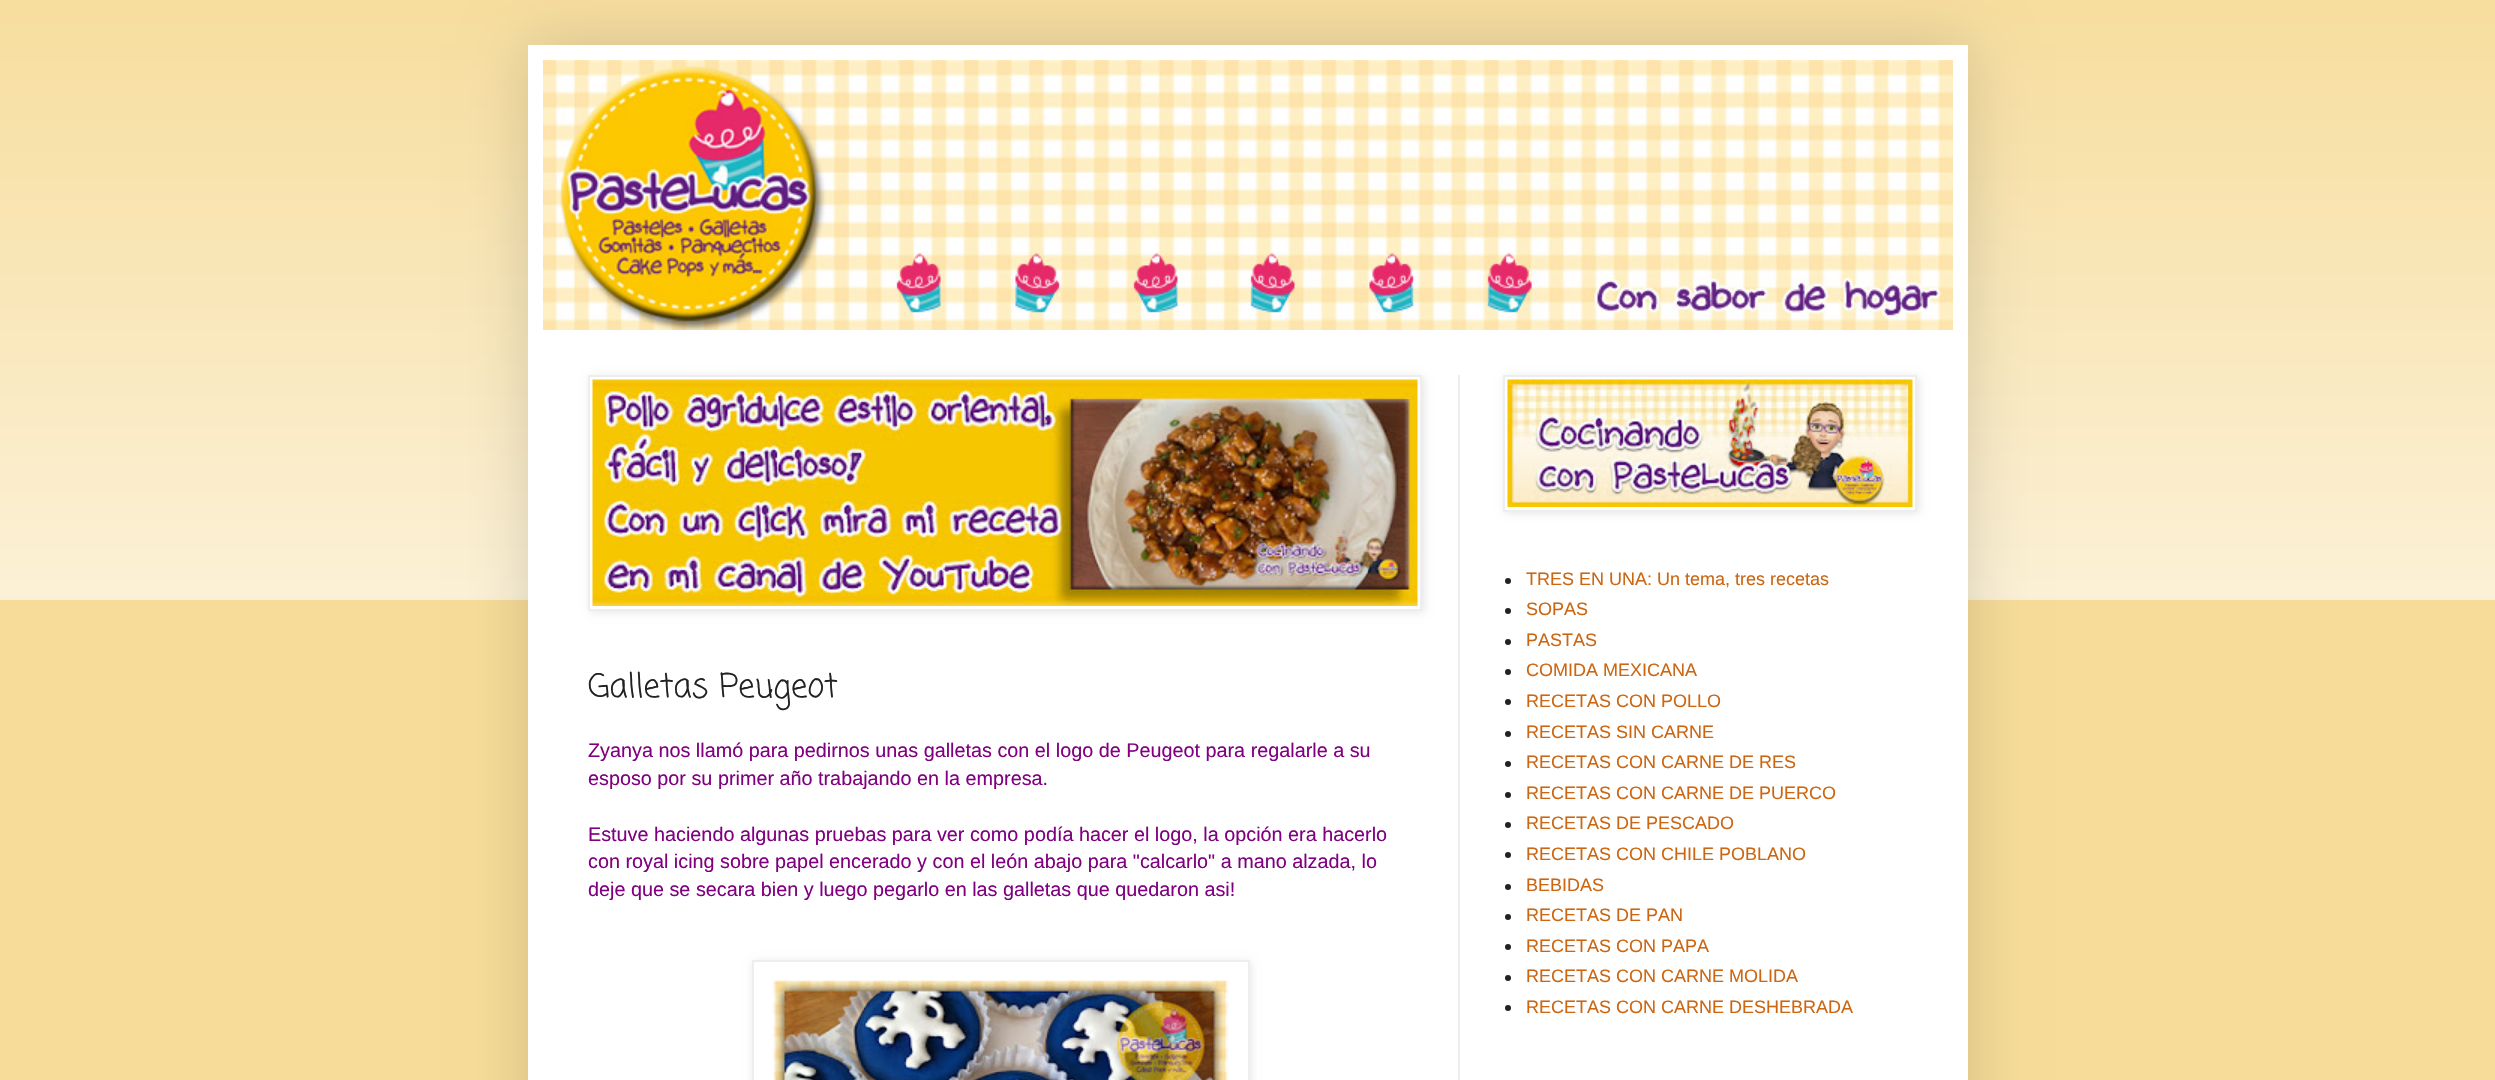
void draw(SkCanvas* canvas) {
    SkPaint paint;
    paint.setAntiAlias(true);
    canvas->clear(0xFFF7DC99);
    canvas->drawImageRect(SkImages::DeferredFromEncodedData(SkData::MakeFromFileName("img1.png")), SkRect::MakeXYWH(0, 0, 2495, 600), SkSamplingOptions());
    paint.setColor(0x26000000);
    paint.setMaskFilter(SkMaskFilter::MakeBlur(kNormal_SkBlurStyle, 30));
    canvas->drawRect(SkRect::MakeXYWH(528, 45, 1440, 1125), paint);
    paint.setMaskFilter(nullptr);
    paint.setColor(0xFFFFFFFF);
    canvas->drawRect(SkRect::MakeXYWH(528, 45, 1440, 1035), paint);
    canvas->drawImageRect(SkImages::DeferredFromEncodedData(SkData::MakeFromFileName("img2.png")), SkRect::MakeXYWH(543, 60, 1410, 270), SkSamplingOptions());
    paint.setColor(0xFFEEEEEE);
    canvas->drawRect(SkRect::MakeXYWH(1458, 375, 2, 705), paint);
    paint.setColor(0x1A000000);
    paint.setMaskFilter(SkMaskFilter::MakeBlur(kNormal_SkBlurStyle, 4));
    canvas->drawRect(SkRect::MakeXYWH(590, 377, 834, 235), paint);
    paint.setMaskFilter(nullptr);
    paint.setColor(0xFFFFFFFF);
    canvas->drawRect(SkRect::MakeXYWH(589, 376, 832, 234), paint);
    paint.setStyle(SkPaint::kStroke_Style);
    paint.setStrokeWidth(2);
    paint.setColor(0xFFEEEEEE);
    canvas->drawRect(SkRect::MakeXYWH(589, 376, 832, 234), paint);
    canvas->drawImageRect(SkImages::DeferredFromEncodedData(SkData::MakeFromFileName("img3.png")), SkRect::MakeXYWH(592, 379, 826, 227), SkSamplingOptions());
    SkFont font1(fontMgr->matchFamilyStyle("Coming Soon", SkFontStyle::Normal()), 33);
    font1.setSubpixel(true);
    paint.setStyle(SkPaint::kFill_Style);
    paint.setColor(0xFF222222);
    canvas->drawString("Galletas Peugeot", 588, 697, font1, paint);
    SkFont font2(fontMgr->matchFamilyStyle("Liberation Sans", SkFontStyle::Normal()), 19.8f);
    font2.setSubpixel(true);
    paint.setColor(0xFF800080);
    canvas->drawString("Zyanya nos llamó para pedirnos unas galletas con el logo de Peugeot para regalarle a su", 588, 757, font2, paint);
    canvas->drawString("esposo por su primer año trabajando en la empresa.", 588, 785, font2, paint);
    canvas->drawString("Estuve haciendo algunas pruebas para ver como podía hacer el logo, la opción era hacerlo", 588, 841, font2, paint);
    canvas->drawString("con royal icing sobre papel encerado y con el león abajo para \"calcarlo\" a mano alzada, lo", 588, 868, font2, paint);
    canvas->drawString("deje que se secara bien y luego pegarlo en las galletas que quedaron asi!", 588, 896, font2, paint);
    paint.setColor(0x1A000000);
    paint.setMaskFilter(SkMaskFilter::MakeBlur(kNormal_SkBlurStyle, 4));
    canvas->drawRect(SkRect::MakeXYWH(753, 962, 498, 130), paint);
    paint.setMaskFilter(nullptr);
    paint.setColor(0xFFFFFFFF);
    canvas->drawRect(SkRect::MakeXYWH(753, 961, 496, 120), paint);
    paint.setStyle(SkPaint::kStroke_Style);
    paint.setColor(0xFFEEEEEE);
    canvas->drawRect(SkRect::MakeXYWH(753, 961, 496, 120), paint);
    canvas->drawImageRect(SkImages::DeferredFromEncodedData(SkData::MakeFromFileName("img4.png")), SkRect::MakeXYWH(772, 980, 457, 100), SkSamplingOptions());
    paint.setStyle(SkPaint::kFill_Style);
    paint.setColor(0x1A000000);
    paint.setMaskFilter(SkMaskFilter::MakeBlur(kNormal_SkBlurStyle, 4));
    canvas->drawRect(SkRect::MakeXYWH(1505, 377, 414, 136), paint);
    paint.setMaskFilter(nullptr);
    paint.setColor(0xFFFFFFFF);
    canvas->drawRect(SkRect::MakeXYWH(1504, 376, 412, 135), paint);
    paint.setStyle(SkPaint::kStroke_Style);
    paint.setColor(0xFFEEEEEE);
    canvas->drawRect(SkRect::MakeXYWH(1504, 376, 412, 135), paint);
    canvas->drawImageRect(SkImages::DeferredFromEncodedData(SkData::MakeFromFileName("img5.png")), SkRect::MakeXYWH(1507, 379, 406, 128), SkSamplingOptions());
    paint.setStyle(SkPaint::kFill_Style);
    paint.setColor(0xFF222222);
    canvas->drawCircle(1508, 581, 3, paint);
    SkFont font3(fontMgr->matchFamilyStyle("Liberation Sans", SkFontStyle::Normal()), 18);
    font3.setSubpixel(true);
    paint.setColor(0xFFCC6611);
    canvas->drawString("TRES EN UNA: Un tema, tres recetas", 1526, 585, font3, paint);
    paint.setColor(0xFF222222);
    canvas->drawCircle(1508, 611, 3, paint);
    paint.setColor(0xFFCC6611);
    canvas->drawString("SOPAS", 1526, 615, font3, paint);
    paint.setColor(0xFF222222);
    canvas->drawCircle(1508, 642, 3, paint);
    paint.setColor(0xFFCC6611);
    canvas->drawString("PASTAS", 1526, 646, font3, paint);
    paint.setColor(0xFF222222);
    canvas->drawCircle(1508, 672, 3, paint);
    paint.setColor(0xFFCC6611);
    canvas->drawString("COMIDA MEXICANA", 1526, 676, font3, paint);
    paint.setColor(0xFF222222);
    canvas->drawCircle(1508, 702, 3, paint);
    paint.setColor(0xFFCC6611);
    canvas->drawString("RECETAS CON POLLO", 1526, 707, font3, paint);
    paint.setColor(0xFF222222);
    canvas->drawCircle(1508, 734, 3, paint);
    paint.setColor(0xFFCC6611);
    canvas->drawString("RECETAS SIN CARNE", 1526, 738, font3, paint);
    paint.setColor(0xFF222222);
    canvas->drawCircle(1508, 764, 3, paint);
    paint.setColor(0xFFCC6611);
    canvas->drawString("RECETAS CON CARNE DE RES", 1526, 768, font3, paint);
    paint.setColor(0xFF222222);
    canvas->drawCircle(1508, 795, 3, paint);
    paint.setColor(0xFFCC6611);
    canvas->drawString("RECETAS CON CARNE DE PUERCO", 1526, 799, font3, paint);
    paint.setColor(0xFF222222);
    canvas->drawCircle(1508, 825, 3, paint);
    paint.setColor(0xFFCC6611);
    canvas->drawString("RECETAS DE PESCADO", 1526, 829, font3, paint);
    paint.setColor(0xFF222222);
    canvas->drawCircle(1508, 855, 3, paint);
    paint.setColor(0xFFCC6611);
    canvas->drawString("RECETAS CON CHILE POBLANO", 1526, 860, font3, paint);
    paint.setColor(0xFF222222);
    canvas->drawCircle(1508, 887, 3, paint);
    paint.setColor(0xFFCC6611);
    canvas->drawString("BEBIDAS", 1526, 891, font3, paint);
    paint.setColor(0xFF222222);
    canvas->drawCircle(1508, 917, 3, paint);
    paint.setColor(0xFFCC6611);
    canvas->drawString("RECETAS DE PAN", 1526, 921, font3, paint);
    paint.setColor(0xFF222222);
    canvas->drawCircle(1508, 947, 3, paint);
    paint.setColor(0xFFCC6611);
    canvas->drawString("RECETAS CON PAPA", 1526, 952, font3, paint);
    paint.setColor(0xFF222222);
    canvas->drawCircle(1508, 978, 3, paint);
    paint.setColor(0xFFCC6611);
    canvas->drawString("RECETAS CON CARNE MOLIDA", 1526, 982, font3, paint);
    paint.setColor(0xFF222222);
    canvas->drawCircle(1508, 1008, 3, paint);
    paint.setColor(0xFFCC6611);
    canvas->drawString("RECETAS CON CARNE DESHEBRADA", 1526, 1013, font3, paint);
}
